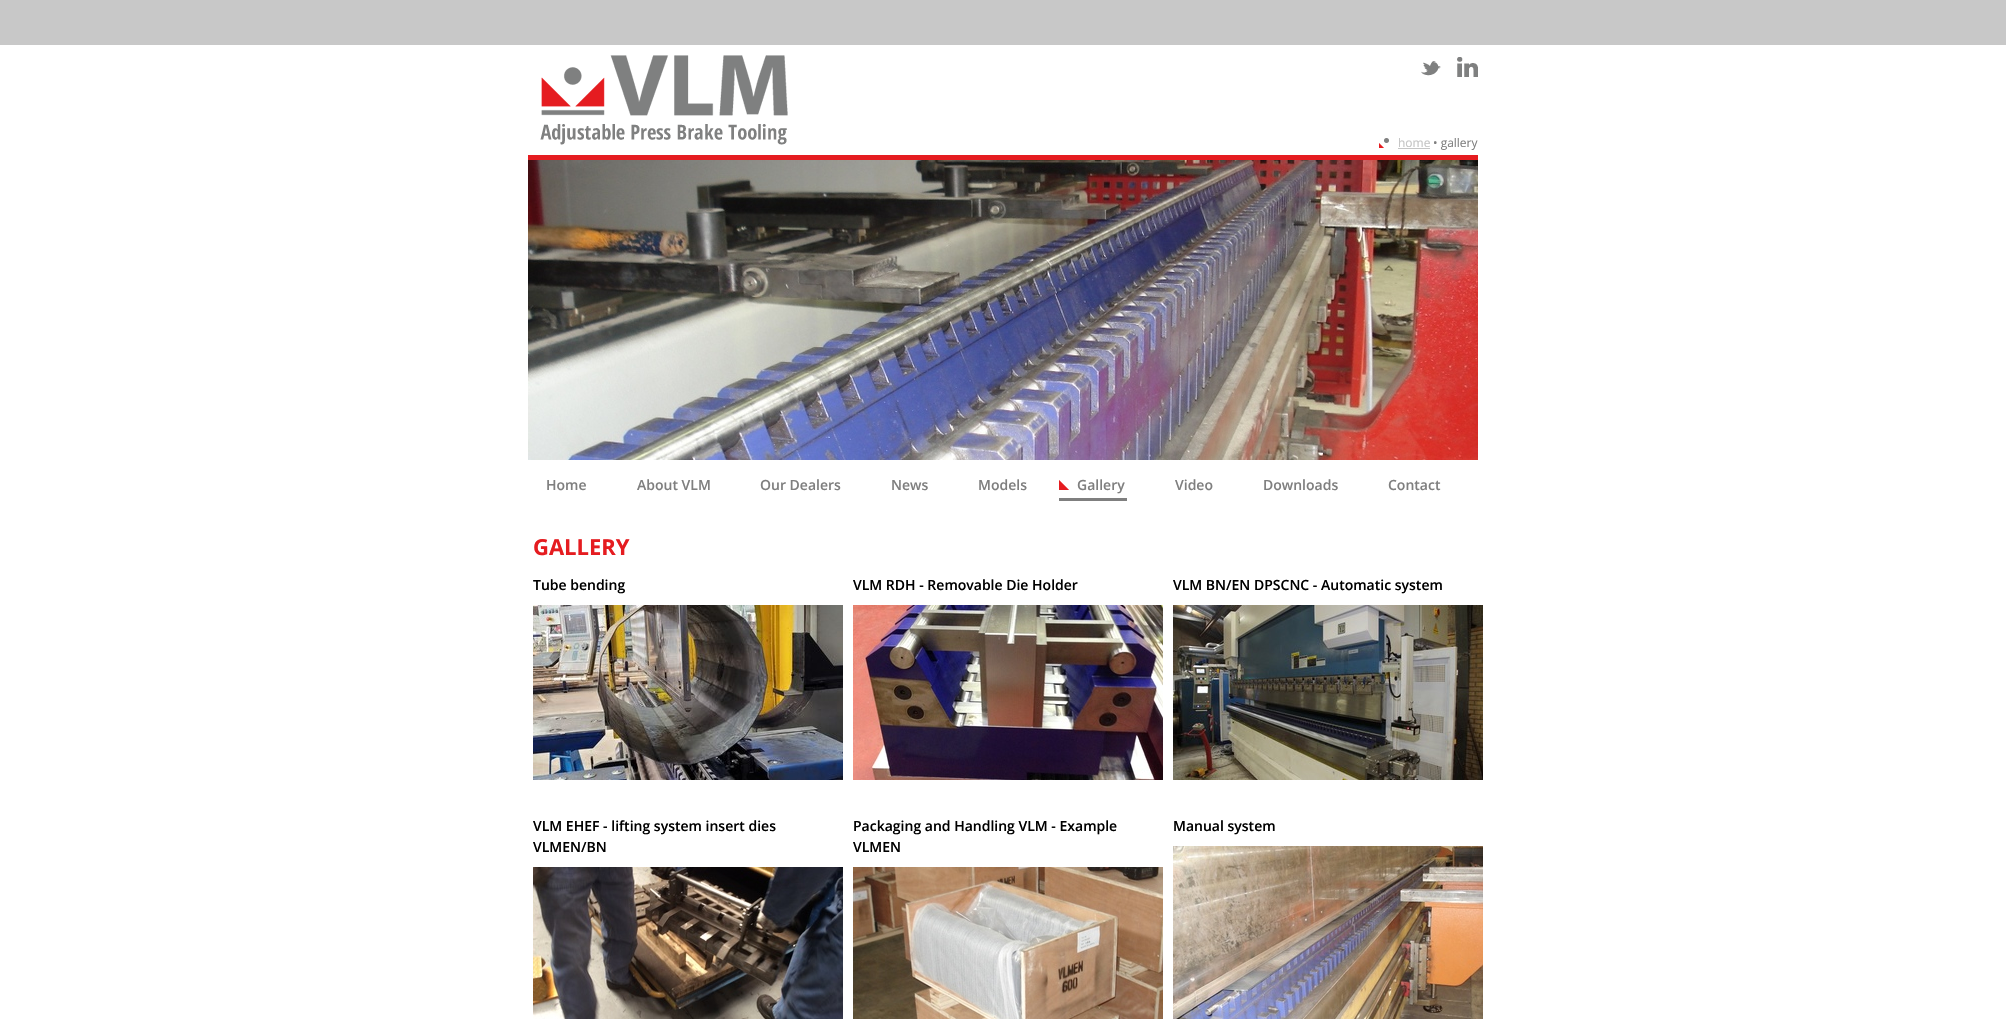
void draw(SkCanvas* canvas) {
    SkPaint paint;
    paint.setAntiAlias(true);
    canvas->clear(0xFFFFFFFF);
    paint.setColor(0xFFC8C8C8);
    canvas->drawRect(SkRect::MakeXYWH(0, 0, 2006, 45), paint);
    canvas->drawImageRect(SkImages::DeferredFromEncodedData(SkData::MakeFromFileName("img1.png")), SkRect::MakeXYWH(540, 55, 248, 90), SkSamplingOptions());
    canvas->drawImageRect(SkImages::DeferredFromEncodedData(SkData::MakeFromFileName("img2.png")), SkRect::MakeXYWH(1421, 61, 20, 15), SkSamplingOptions());
    canvas->drawImageRect(SkImages::DeferredFromEncodedData(SkData::MakeFromFileName("img3.png")), SkRect::MakeXYWH(1457, 57, 21, 20), SkSamplingOptions());
    canvas->drawImageRect(SkImages::DeferredFromEncodedData(SkData::MakeFromFileName("img4.png")), SkRect::MakeXYWH(1379, 138, 10, 10), SkSamplingOptions());
    SkFont font1(fontMgr->matchFamilyStyle("Open Sans", SkFontStyle::Normal()), 12);
    font1.setSubpixel(true);
    paint.setColor(0xFFC5C5C5);
    canvas->drawString("home", 1398, 147, font1, paint);
    canvas->drawRect(SkRect::MakeXYWH(1398, 148, 32, 1), paint);
    paint.setColor(0xFF7F7F7F);
    canvas->drawString("• gallery", 1433, 147, font1, paint);
    paint.setColor(0xFFE51C20);
    canvas->drawRect(SkRect::MakeXYWH(528, 155, 950, 5), paint);
    canvas->drawImageRect(SkImages::DeferredFromEncodedData(SkData::MakeFromFileName("img5.png")), SkRect::MakeXYWH(528, 160, 950, 300), SkSamplingOptions());
    SkFont font2(fontMgr->matchFamilyStyle("Open Sans", SkFontStyle(600, SkFontStyle::kNormal_Width, SkFontStyle::kUpright_Slant)), 14);
    font2.setSubpixel(true);
    paint.setColor(0xFF7F7F7F);
    canvas->drawString("Home", 546, 490, font2, paint);
    canvas->drawString("About VLM", 637, 490, font2, paint);
    canvas->drawString("Our Dealers", 760, 490, font2, paint);
    canvas->drawString("News", 891, 490, font2, paint);
    canvas->drawString("Models", 978, 490, font2, paint);
    canvas->drawImageRect(SkImages::DeferredFromEncodedData(SkData::MakeFromFileName("img6.png")), SkRect::MakeXYWH(1059, 480, 10, 10), SkSamplingOptions());
    canvas->drawRect(SkRect::MakeXYWH(1059, 498, 68, 3), paint);
    canvas->drawString("Gallery", 1077, 490, font2, paint);
    canvas->drawString("Video", 1175, 490, font2, paint);
    canvas->drawString("Downloads", 1263, 490, font2, paint);
    canvas->drawString("Contact", 1388, 490, font2, paint);
    SkFont font3(fontMgr->matchFamilyStyle("Open Sans", SkFontStyle::Bold()), 22);
    font3.setSubpixel(true);
    paint.setColor(0xFFE51C20);
    canvas->drawString("GALLERY", 533, 555, font3, paint);
    paint.setColor(0xFF000000);
    canvas->drawString("Tube bending", 533, 590, font2, paint);
    canvas->drawImageRect(SkImages::DeferredFromEncodedData(SkData::MakeFromFileName("img7.png")), SkRect::MakeXYWH(533, 605, 310, 175), SkSamplingOptions());
    canvas->drawString("VLM RDH - Removable Die Holder", 853, 590, font2, paint);
    canvas->drawImageRect(SkImages::DeferredFromEncodedData(SkData::MakeFromFileName("img8.png")), SkRect::MakeXYWH(853, 605, 310, 175), SkSamplingOptions());
    canvas->drawString("VLM BN/EN DPSCNC - Automatic system", 1173, 590, font2, paint);
    canvas->drawImageRect(SkImages::DeferredFromEncodedData(SkData::MakeFromFileName("img9.png")), SkRect::MakeXYWH(1173, 605, 310, 175), SkSamplingOptions());
    canvas->drawString("VLM EHEF - lifting system insert dies", 533, 831, font2, paint);
    canvas->drawString("VLMEN/BN", 533, 852, font2, paint);
    canvas->drawImageRect(SkImages::DeferredFromEncodedData(SkData::MakeFromFileName("img10.png")), SkRect::MakeXYWH(533, 867, 310, 152), SkSamplingOptions());
    canvas->drawString("Packaging and Handling VLM - Example", 853, 831, font2, paint);
    canvas->drawString("VLMEN", 853, 852, font2, paint);
    canvas->drawImageRect(SkImages::DeferredFromEncodedData(SkData::MakeFromFileName("img11.png")), SkRect::MakeXYWH(853, 867, 310, 152), SkSamplingOptions());
    canvas->drawString("Manual system", 1173, 831, font2, paint);
    canvas->drawImageRect(SkImages::DeferredFromEncodedData(SkData::MakeFromFileName("img12.png")), SkRect::MakeXYWH(1173, 846, 310, 173), SkSamplingOptions());
}
